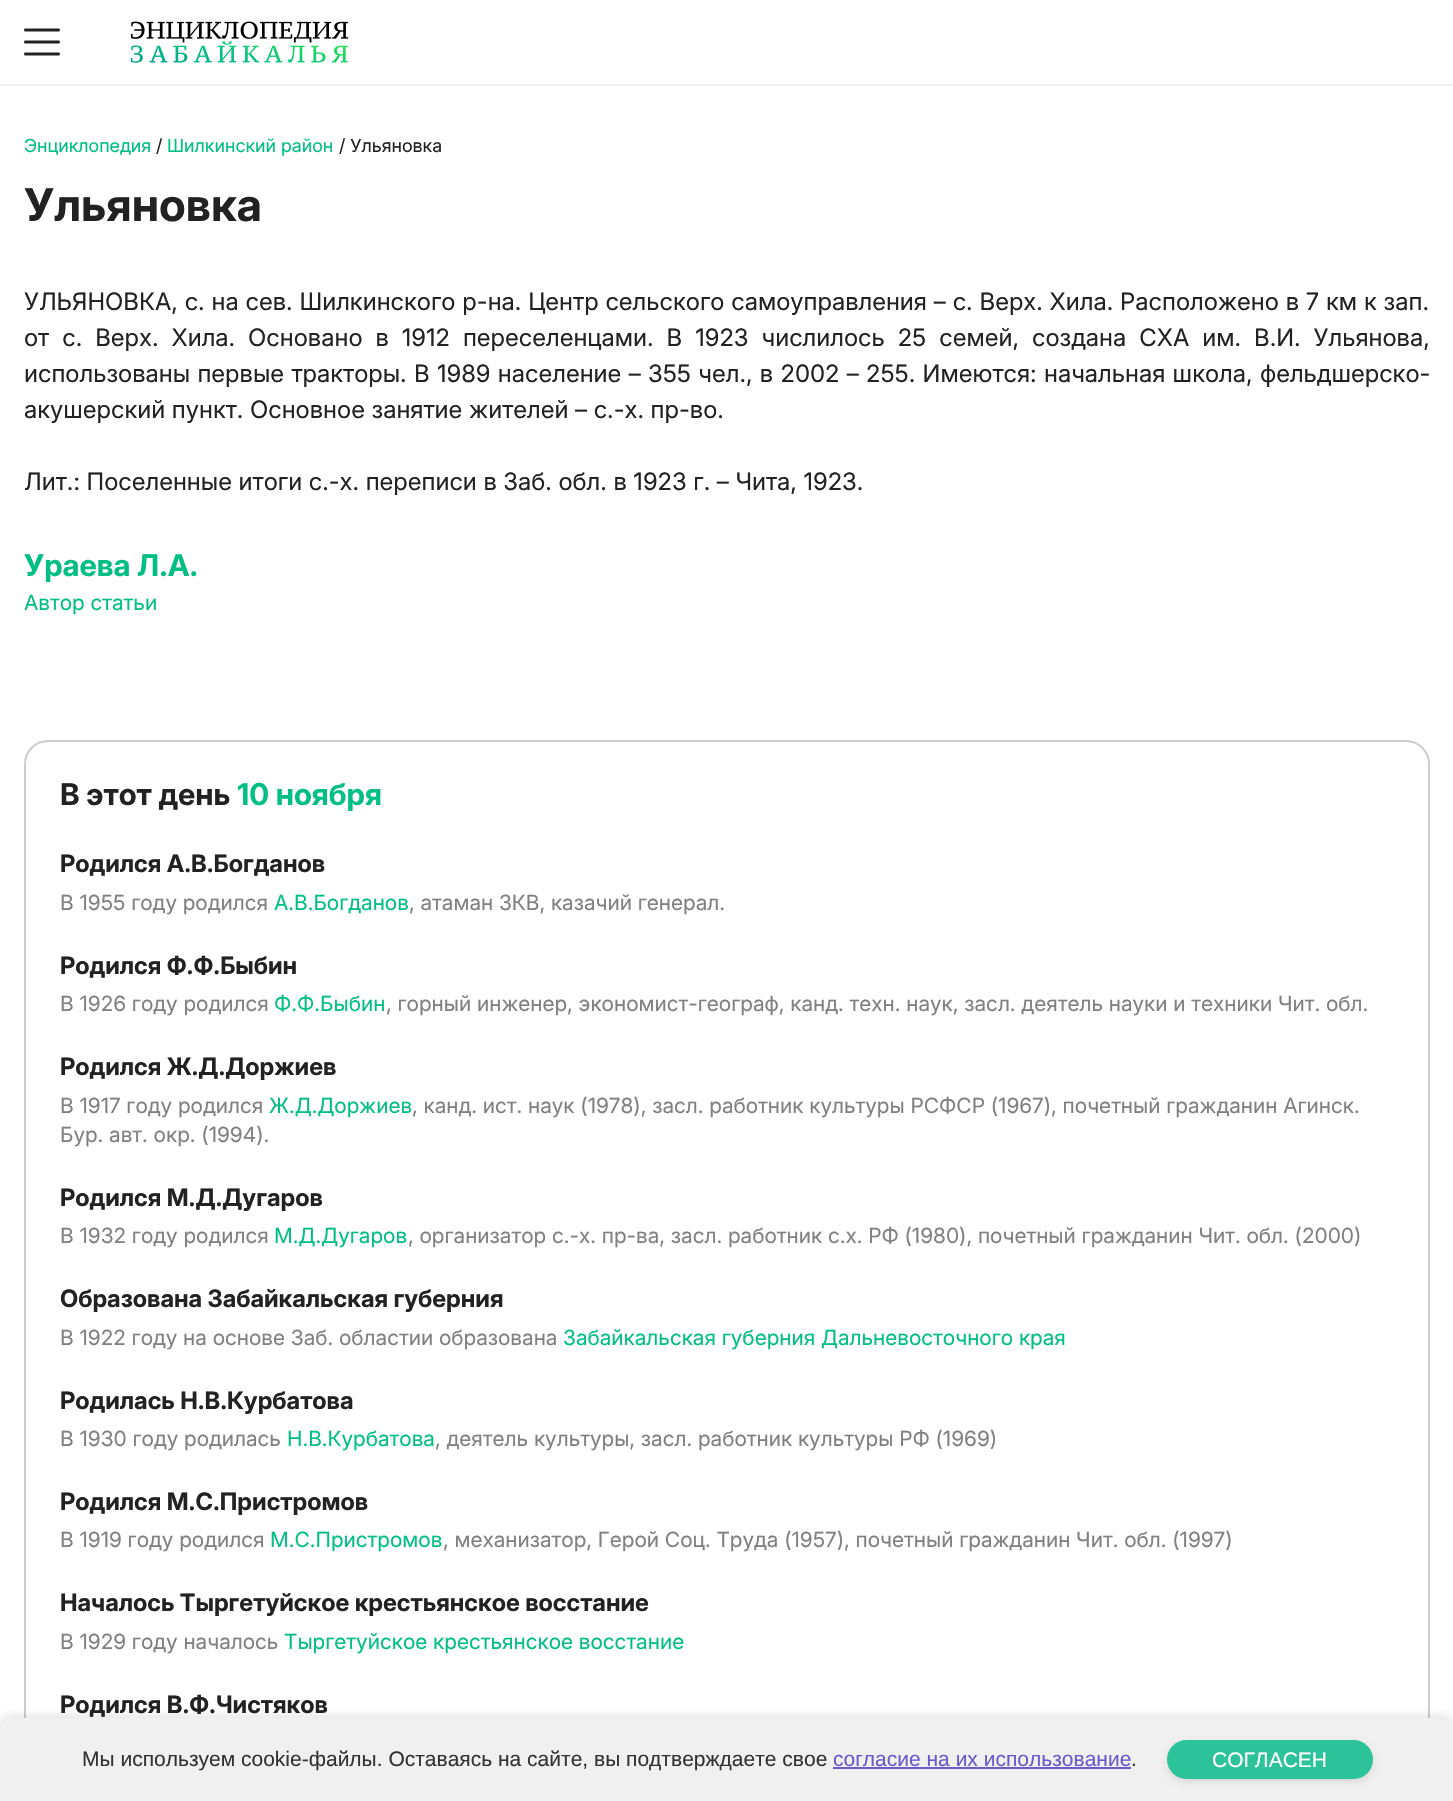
void draw(SkCanvas* canvas) {
    SkPaint paint;
    paint.setAntiAlias(true);
    auto spacedText = [&](const char* s, float x, float y, const SkFont& font, const SkPaint& ink, float letter, float word) {
        std::vector<SkGlyphID> glyphs(font.countText(s, strlen(s), SkTextEncoding::kUTF8));
        std::vector<float> xs(glyphs.size());
        font.textToGlyphs(s, strlen(s), SkTextEncoding::kUTF8, glyphs);
        font.getXPos(glyphs, xs, x);
        float extra = 0;
        for (size_t i = 0; i < glyphs.size(); i++) {
            xs[i] += extra;
            extra += letter + word * (glyphs[i] == font.unicharToGlyph(' '));
        }
        canvas->drawTextBlob(SkTextBlob::MakeFromPosHGlyphs(glyphs, xs, y, font), 0, 0, ink);
    };
    canvas->clear(0xFFFFFFFF);
    paint.setColor(0xFFEFEFEF);
    canvas->drawRect(SkRect::MakeXYWH(0, 84, 1453, 2), paint);
    canvas->drawImageRect(SkImages::DeferredFromEncodedData(SkData::MakeFromFileName("img1.png")), SkRect::MakeXYWH(24, 28, 36, 28), SkSamplingOptions());
    canvas->drawImageRect(SkImages::DeferredFromEncodedData(SkData::MakeFromFileName("img2.png")), SkRect::MakeXYWH(130, 21, 219, 42), SkSamplingOptions());
    SkFont font1(fontMgr->matchFamilyStyle("Inter", SkFontStyle::Normal()), 18);
    font1.setSubpixel(true);
    paint.setColor(0xFF01BE84);
    canvas->drawString("Энциклопедия", 24, 152, font1, paint);
    paint.setColor(0xFF222222);
    canvas->drawString("/", 156, 152, font1, paint);
    paint.setColor(0xFF01BE84);
    canvas->drawString("Шилкинский район", 167, 152, font1, paint);
    paint.setColor(0xFF222222);
    canvas->drawString("/ Ульяновка", 339, 152, font1, paint);
    SkFont font2(fontMgr->matchFamilyStyle("Inter", SkFontStyle::Bold()), 45);
    font2.setSubpixel(true);
    canvas->drawString("Ульяновка", 24, 221, font2, paint);
    SkFont font3(fontMgr->matchFamilyStyle("Inter", SkFontStyle::Normal()), 24);
    font3.setSubpixel(true);
    spacedText("УЛЬЯНОВКА, с. на сев. Шилкинского р-на. Центр сельского самоуправления – с. Верх. Хила. Расположено в 7 км к зап.", 24, 310, font3, paint, 0, 0.25f);
    spacedText("от с. Верх. Хила. Основано в 1912 переселенцами. В 1923 числилось 25 семей, создана СХА им. В.И. Ульянова,", 24, 346, font3, paint, 0, 6.4f);
    spacedText("использованы первые тракторы. В 1989 население – 355 чел., в 2002 – 255. Имеются: начальная школа, фельдшерско-", 24, 382, font3, paint, 0, 0.75f);
    canvas->drawString("акушерский пункт. Основное занятие жителей – с.-х. пр-во.", 24, 418, font3, paint);
    canvas->drawString("Лит.: Поселенные итоги с.-х. переписи в Заб. обл. в 1923 г. – Чита, 1923.", 24, 490, font3, paint);
    SkFont font4(fontMgr->matchFamilyStyle("Inter", SkFontStyle::Bold()), 30);
    font4.setSubpixel(true);
    paint.setColor(0xFF01BE84);
    canvas->drawString("Ураева Л.А.", 24, 576, font4, paint);
    SkFont font5(fontMgr->matchFamilyStyle("Inter", SkFontStyle::Normal()), 21);
    font5.setSubpixel(true);
    canvas->drawString("Автор статьи", 24, 610, font5, paint);
    paint.setStyle(SkPaint::kStroke_Style);
    paint.setStrokeWidth(2);
    paint.setColor(0xFFCCCCCC);
    canvas->drawRoundRect(SkRect::MakeXYWH(25, 741, 1404, 1051), 23, 23, paint);
    paint.setStyle(SkPaint::kFill_Style);
    paint.setColor(0xFF222222);
    canvas->drawString("В этот день", 60, 805, font4, paint);
    paint.setColor(0xFF01BE84);
    canvas->drawString("10 ноября", 237, 805, font4, paint);
    SkFont font6(fontMgr->matchFamilyStyle("Inter", SkFontStyle::Bold()), 24);
    font6.setSubpixel(true);
    paint.setColor(0xFF222222);
    canvas->drawString("Родился А.В.Богданов", 60, 872, font6, paint);
    paint.setColor(0xFF808080);
    canvas->drawString("В 1955 году родился", 60, 910, font5, paint);
    paint.setColor(0xFF01BE84);
    canvas->drawString("А.В.Богданов", 274, 910, font5, paint);
    paint.setColor(0xFF808080);
    canvas->drawString(", атаман ЗКВ, казачий генерал.", 409, 910, font5, paint);
    paint.setColor(0xFF222222);
    canvas->drawString("Родился Ф.Ф.Быбин", 60, 974, font6, paint);
    paint.setColor(0xFF808080);
    canvas->drawString("В 1926 году родился", 60, 1011, font5, paint);
    paint.setColor(0xFF01BE84);
    canvas->drawString("Ф.Ф.Быбин", 274, 1011, font5, paint);
    paint.setColor(0xFF808080);
    canvas->drawString(", горный инженер, экономист-географ, канд. техн. наук, засл. деятель науки и техники Чит. обл.", 386, 1011, font5, paint);
    paint.setColor(0xFF222222);
    canvas->drawString("Родился Ж.Д.Доржиев", 60, 1075, font6, paint);
    paint.setColor(0xFF808080);
    canvas->drawString("В 1917 году родился", 60, 1113, font5, paint);
    paint.setColor(0xFF01BE84);
    canvas->drawString("Ж.Д.Доржиев", 269, 1113, font5, paint);
    paint.setColor(0xFF808080);
    canvas->drawString(", канд. ист. наук (1978), засл. работник культуры РСФСР (1967), почетный гражданин Агинск.", 412, 1113, font5, paint);
    canvas->drawString("Бур. авт. окр. (1994).", 60, 1142, font5, paint);
    paint.setColor(0xFF222222);
    canvas->drawString("Родился М.Д.Дугаров", 60, 1206, font6, paint);
    paint.setColor(0xFF808080);
    canvas->drawString("В 1932 году родился", 60, 1243, font5, paint);
    paint.setColor(0xFF01BE84);
    canvas->drawString("М.Д.Дугаров", 274, 1243, font5, paint);
    paint.setColor(0xFF808080);
    canvas->drawString(", организатор с.-х. пр-ва, засл. работник с.х. РФ (1980), почетный гражданин Чит. обл. (2000)", 408, 1243, font5, paint);
    paint.setColor(0xFF222222);
    canvas->drawString("Образована Забайкальская губерния", 60, 1307, font6, paint);
    paint.setColor(0xFF808080);
    canvas->drawString("В 1922 году на основе Заб. областии образована", 60, 1345, font5, paint);
    paint.setColor(0xFF01BE84);
    canvas->drawString("Забайкальская губерния Дальневосточного края", 563, 1345, font5, paint);
    paint.setColor(0xFF222222);
    canvas->drawString("Родилась Н.В.Курбатова", 60, 1409, font6, paint);
    paint.setColor(0xFF808080);
    canvas->drawString("В 1930 году родилась", 60, 1446, font5, paint);
    paint.setColor(0xFF01BE84);
    canvas->drawString("Н.В.Курбатова", 287, 1446, font5, paint);
    paint.setColor(0xFF808080);
    canvas->drawString(", деятель культуры, засл. работник культуры РФ (1969)", 435, 1446, font5, paint);
    paint.setColor(0xFF222222);
    canvas->drawString("Родился М.С.Пристромов", 60, 1510, font6, paint);
    paint.setColor(0xFF808080);
    canvas->drawString("В 1919 году родился", 60, 1547, font5, paint);
    paint.setColor(0xFF01BE84);
    canvas->drawString("М.С.Пристромов", 270, 1547, font5, paint);
    paint.setColor(0xFF808080);
    canvas->drawString(", механизатор, Герой Соц. Труда (1957), почетный гражданин Чит. обл. (1997)", 443, 1547, font5, paint);
    paint.setColor(0xFF222222);
    canvas->drawString("Началось Тыргетуйское крестьянское восстание", 60, 1611, font6, paint);
    paint.setColor(0xFF808080);
    canvas->drawString("В 1929 году началось", 60, 1649, font5, paint);
    paint.setColor(0xFF01BE84);
    canvas->drawString("Тыргетуйское крестьянское восстание", 284, 1649, font5, paint);
    paint.setColor(0xFF222222);
    canvas->drawString("Родился В.Ф.Чистяков", 60, 1713, font6, paint);
    paint.setColor(0x1A000000);
    paint.setMaskFilter(SkMaskFilter::MakeBlur(kNormal_SkBlurStyle, 4));
    canvas->drawRoundRect(SkRect::MakeXYWH(0, 1715, 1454, 84), 12, 12, paint);
    paint.setMaskFilter(nullptr);
    paint.setColor(0xFFF0F0F0);
    canvas->drawPath(SkPathBuilder().moveTo(12, 1718).lineTo(1442, 1718).cubicTo(1448.5f, 1718, 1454, 1723.5f, 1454, 1730).lineTo(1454, 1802).lineTo(0, 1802).lineTo(0, 1730).cubicTo(0, 1723.5f, 5.5f, 1718, 12, 1718).close().detach(), paint);
    SkFont font7(fontMgr->matchFamilyStyle("Liberation Sans", SkFontStyle::Normal()), 21);
    font7.setSubpixel(true);
    paint.setColor(0xFF333333);
    canvas->drawString("Мы используем cookie-файлы. Оставаясь на сайте, вы подтверждаете свое", 82, 1766, font7, paint);
    paint.setColor(0xFF6A5ACD);
    canvas->drawString("согласие на их использование", 833, 1766, font7, paint);
    canvas->drawRect(SkRect::MakeXYWH(833, 1767, 298, 2), paint);
    paint.setColor(0xFF333333);
    canvas->drawString(".", 1131, 1766, font7, paint);
    paint.setColor(0x1A000000);
    paint.setMaskFilter(SkMaskFilter::MakeBlur(kNormal_SkBlurStyle, 3));
    canvas->drawRoundRect(SkRect::MakeXYWH(1167, 1743, 206, 39), 19.5f, 19.5f, paint);
    paint.setMaskFilter(nullptr);
    paint.setColor(0xFF2CC39A);
    canvas->drawRoundRect(SkRect::MakeXYWH(1167, 1740, 206, 39), 19.5f, 19.5f, paint);
    paint.setColor(0xFFFFFFFF);
    canvas->drawString("СОГЛАСЕН", 1212, 1767, font7, paint);
}
